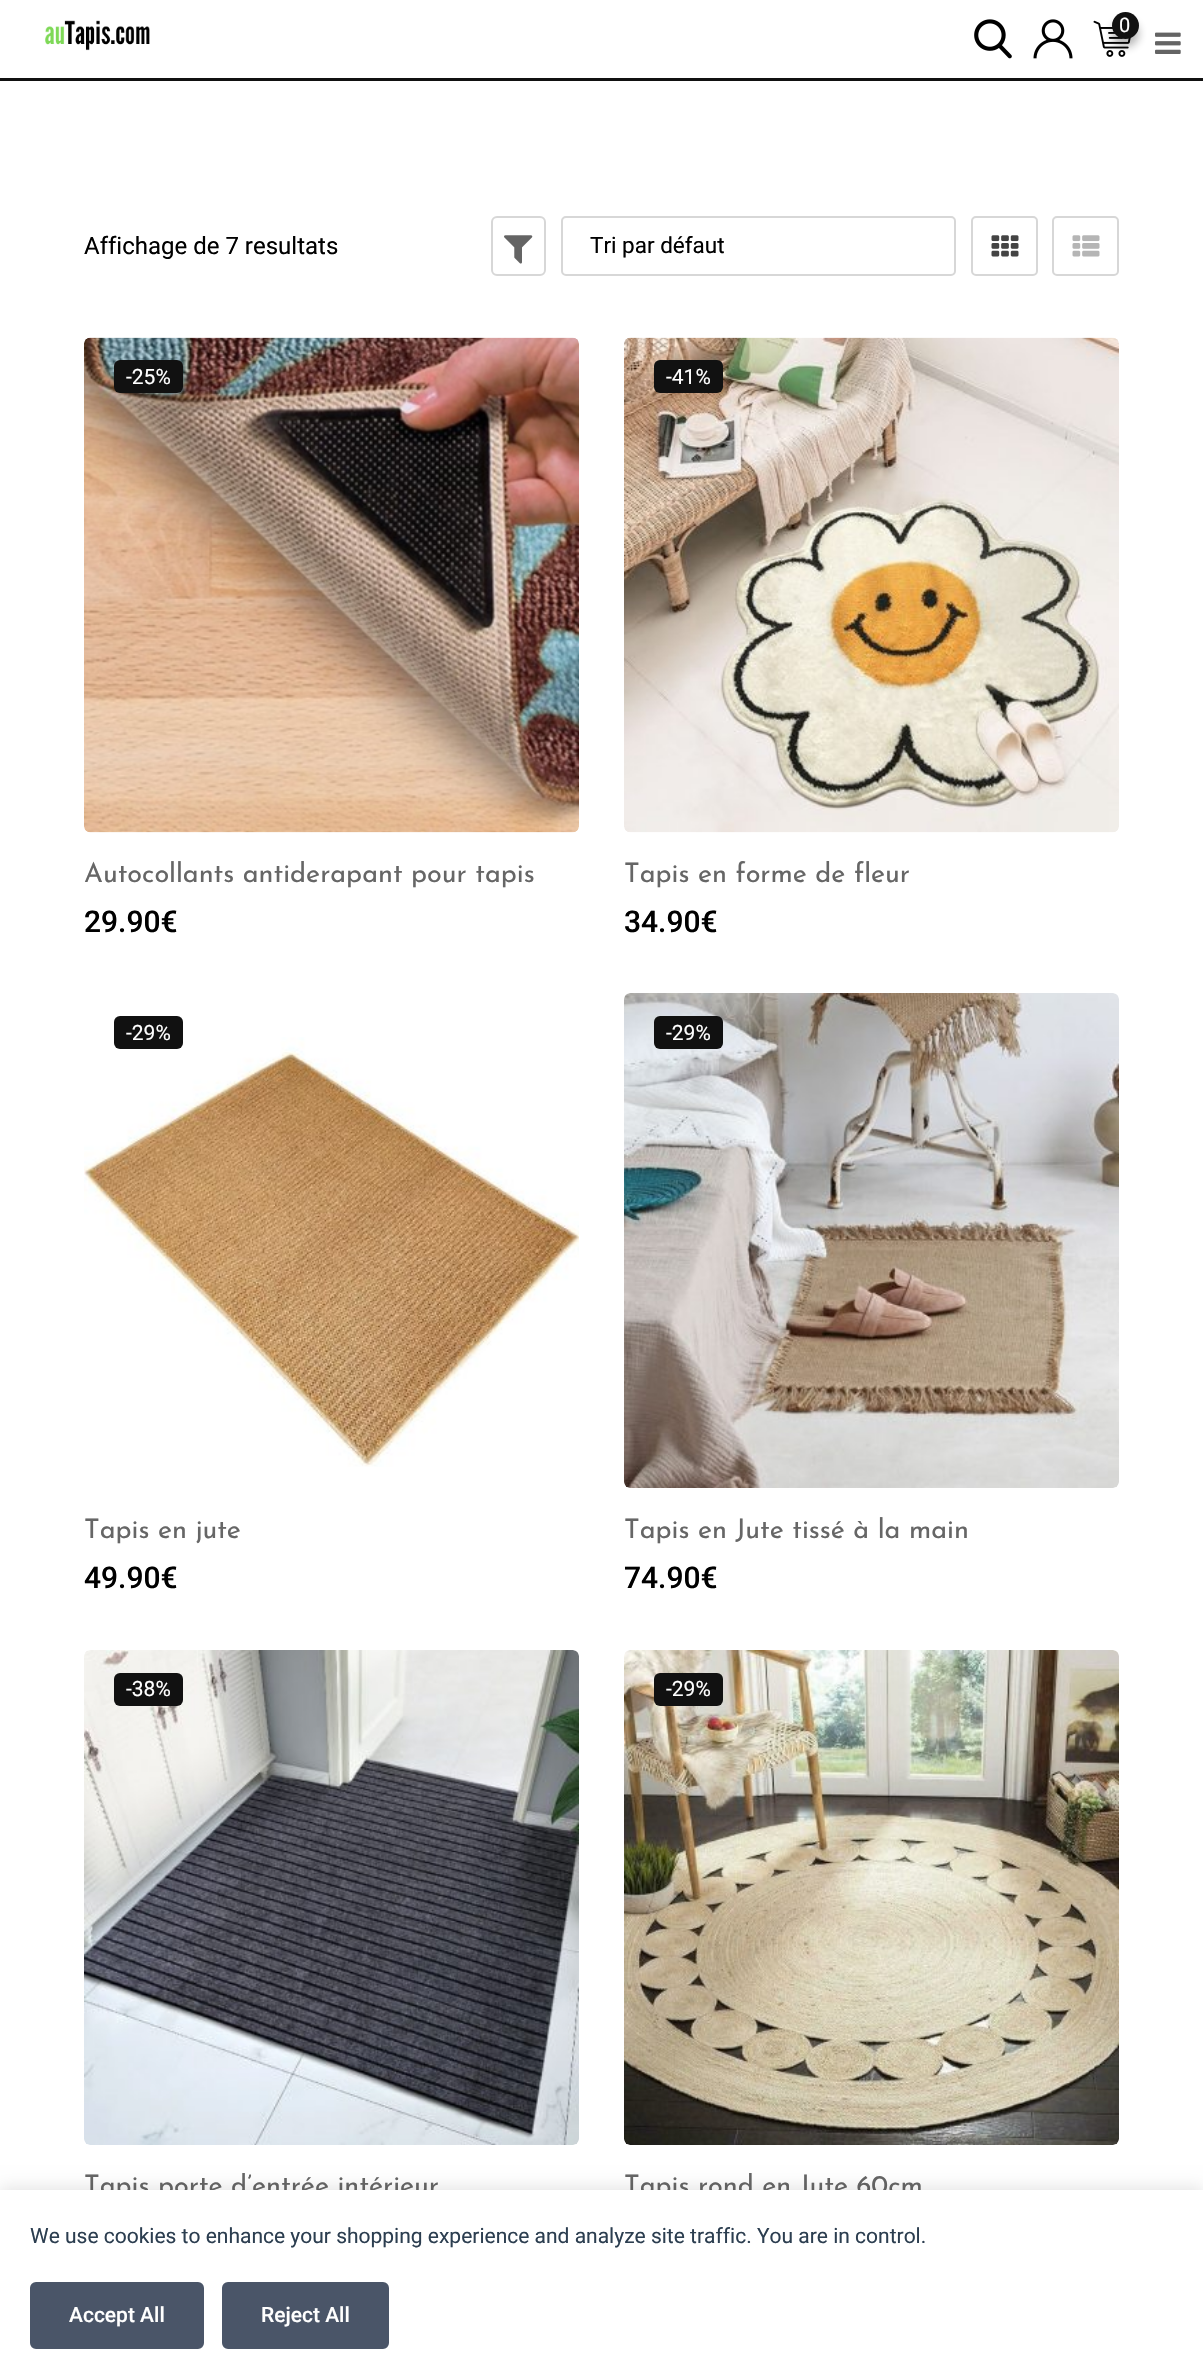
void draw(SkCanvas* canvas) {
    SkPaint paint;
    paint.setAntiAlias(true);
    canvas->clear(0xFFFFFFFF);
    paint.setColor(0xFF111111);
    canvas->drawRect(SkRect::MakeXYWH(0, 78, 1203, 3), paint);
    canvas->drawImageRect(SkImages::DeferredFromEncodedData(SkData::MakeFromFileName("img1.png")), SkRect::MakeXYWH(45, 20, 105, 31), SkSamplingOptions());
    canvas->drawImageRect(SkImages::DeferredFromEncodedData(SkData::MakeFromFileName("img2.png")), SkRect::MakeXYWH(974, 19, 38, 40), SkSamplingOptions());
    canvas->drawImageRect(SkImages::DeferredFromEncodedData(SkData::MakeFromFileName("img3.png")), SkRect::MakeXYWH(1033, 19, 40, 40), SkSamplingOptions());
    canvas->drawImageRect(SkImages::DeferredFromEncodedData(SkData::MakeFromFileName("img4.png")), SkRect::MakeXYWH(1093, 20, 38, 37), SkSamplingOptions());
    paint.setColor(0x4D111111);
    paint.setMaskFilter(SkMaskFilter::MakeBlur(kNormal_SkBlurStyle, 4));
    canvas->drawRoundRect(SkRect::MakeXYWH(1112, 20, 27, 27), 13.5f, 13.5f, paint);
    paint.setMaskFilter(nullptr);
    paint.setColor(0xFF111111);
    canvas->drawCircle(1125.5f, 25.5f, 13.5f, paint);
    SkFont font1(fontMgr->matchFamilyStyle("Roboto", SkFontStyle::Normal()), 20);
    font1.setSubpixel(true);
    paint.setColor(0xFFFFFFFF);
    canvas->drawString("0", 1119, 32, font1, paint);
    canvas->drawImageRect(SkImages::DeferredFromEncodedData(SkData::MakeFromFileName("img5.png")), SkRect::MakeXYWH(1155, 32, 26, 22), SkSamplingOptions());
    SkFont font2(fontMgr->matchFamilyStyle("Roboto", SkFontStyle::Normal()), 24);
    font2.setSubpixel(true);
    paint.setColor(0xFF000000);
    canvas->drawString("Affichage de 7 resultats", 84, 254, font2, paint);
    paint.setStyle(SkPaint::kStroke_Style);
    paint.setStrokeWidth(2);
    paint.setColor(0xFFD7D7D7);
    canvas->drawRoundRect(SkRect::MakeXYWH(492, 217, 53, 58), 5, 5, paint);
    canvas->drawImageRect(SkImages::DeferredFromEncodedData(SkData::MakeFromFileName("img6.png")), SkRect::MakeXYWH(504, 235, 29, 29), SkSamplingOptions());
    canvas->drawRoundRect(SkRect::MakeXYWH(562, 217, 393, 58), 4, 4, paint);
    SkFont font3(fontMgr->matchFamilyStyle("Roboto", SkFontStyle::Normal()), 22.5f);
    font3.setSubpixel(true);
    paint.setStyle(SkPaint::kFill_Style);
    paint.setColor(0xFF000000);
    canvas->drawString("Tri par défaut", 590, 253, font3, paint);
    paint.setStyle(SkPaint::kStroke_Style);
    paint.setColor(0xFFD7D7D7);
    canvas->drawRoundRect(SkRect::MakeXYWH(972, 217, 65, 58), 4, 4, paint);
    canvas->drawImageRect(SkImages::DeferredFromEncodedData(SkData::MakeFromFileName("img7.png")), SkRect::MakeXYWH(991, 235, 28, 22), SkSamplingOptions());
    canvas->drawRoundRect(SkRect::MakeXYWH(1053, 217, 65, 58), 4, 4, paint);
    canvas->drawImageRect(SkImages::DeferredFromEncodedData(SkData::MakeFromFileName("img8.png")), SkRect::MakeXYWH(1072, 235, 28, 22), SkSamplingOptions());
    canvas->drawImageRect(SkImages::DeferredFromEncodedData(SkData::MakeFromFileName("img9.png")), SkRect::MakeXYWH(84, 337, 495, 496), SkSamplingOptions());
    paint.setStyle(SkPaint::kFill_Style);
    paint.setColor(0xFF111111);
    canvas->drawRoundRect(SkRect::MakeXYWH(114, 360, 69, 33), 6, 6, paint);
    SkFont font4(fontMgr->matchFamilyStyle("Roboto", SkFontStyle::Normal()), 21);
    font4.setSubpixel(true);
    paint.setColor(0xFFFFFFFF);
    canvas->drawString("-25%", 126, 384, font4, paint);
    SkFont font5(fontMgr->matchFamilyStyle("Josefin Sans", SkFontStyle::Normal()), 27);
    font5.setSubpixel(true);
    paint.setColor(0xFF666666);
    canvas->drawString("Autocollants antiderapant pour tapis", 84, 882, font5, paint);
    SkFont font6(fontMgr->matchFamilyStyle("Roboto", SkFontStyle(500, SkFontStyle::kNormal_Width, SkFontStyle::kUpright_Slant)), 30);
    font6.setSubpixel(true);
    paint.setColor(0xFF000000);
    canvas->drawString("29.90€", 84, 932, font6, paint);
    canvas->drawImageRect(SkImages::DeferredFromEncodedData(SkData::MakeFromFileName("img10.png")), SkRect::MakeXYWH(624, 337, 495, 496), SkSamplingOptions());
    paint.setColor(0xFF111111);
    canvas->drawRoundRect(SkRect::MakeXYWH(654, 360, 69, 33), 6, 6, paint);
    paint.setColor(0xFFFFFFFF);
    canvas->drawString("-41%", 666, 384, font4, paint);
    paint.setColor(0xFF666666);
    canvas->drawString("Tapis en forme de fleur", 624, 882, font5, paint);
    paint.setColor(0xFF000000);
    canvas->drawString("34.90€", 624, 932, font6, paint);
    canvas->drawImageRect(SkImages::DeferredFromEncodedData(SkData::MakeFromFileName("img11.png")), SkRect::MakeXYWH(84, 1037, 495, 430), SkSamplingOptions());
    paint.setColor(0xFF111111);
    canvas->drawRoundRect(SkRect::MakeXYWH(114, 1016, 69, 33), 6, 6, paint);
    paint.setColor(0xFFFFFFFF);
    canvas->drawString("-29%", 126, 1040, font4, paint);
    paint.setColor(0xFF666666);
    canvas->drawString("Tapis en jute", 84, 1538, font5, paint);
    paint.setColor(0xFF000000);
    canvas->drawString("49.90€", 84, 1588, font6, paint);
    canvas->drawImageRect(SkImages::DeferredFromEncodedData(SkData::MakeFromFileName("img12.png")), SkRect::MakeXYWH(624, 993, 495, 495), SkSamplingOptions());
    paint.setColor(0xFF111111);
    canvas->drawRoundRect(SkRect::MakeXYWH(654, 1016, 69, 33), 6, 6, paint);
    paint.setColor(0xFFFFFFFF);
    canvas->drawString("-29%", 666, 1040, font4, paint);
    paint.setColor(0xFF666666);
    canvas->drawString("Tapis en Jute tissé à la main", 624, 1538, font5, paint);
    paint.setColor(0xFF000000);
    canvas->drawString("74.90€", 624, 1588, font6, paint);
    canvas->drawImageRect(SkImages::DeferredFromEncodedData(SkData::MakeFromFileName("img13.png")), SkRect::MakeXYWH(84, 1650, 495, 495), SkSamplingOptions());
    paint.setColor(0xFF111111);
    canvas->drawRoundRect(SkRect::MakeXYWH(114, 1673, 69, 33), 6, 6, paint);
    paint.setColor(0xFFFFFFFF);
    canvas->drawString("-38%", 126, 1696, font4, paint);
    paint.setColor(0xFF666666);
    canvas->drawString("Tapis porte d’entrée intérieur", 84, 2194, font5, paint);
    canvas->drawImageRect(SkImages::DeferredFromEncodedData(SkData::MakeFromFileName("img14.png")), SkRect::MakeXYWH(624, 1650, 495, 495), SkSamplingOptions());
    paint.setColor(0xFF111111);
    canvas->drawRoundRect(SkRect::MakeXYWH(654, 1673, 69, 33), 6, 6, paint);
    paint.setColor(0xFFFFFFFF);
    canvas->drawString("-29%", 666, 1696, font4, paint);
    paint.setColor(0xFF666666);
    canvas->drawString("Tapis rond en Jute 60cm", 624, 2194, font5, paint);
    paint.setColor(0x1A000000);
    paint.setMaskFilter(SkMaskFilter::MakeBlur(kNormal_SkBlurStyle, 7.5f));
    canvas->drawRect(SkRect::MakeXYWH(0, 2187, 1203, 189), paint);
    paint.setMaskFilter(nullptr);
    paint.setColor(0xFFFFFFFF);
    canvas->drawRect(SkRect::MakeXYWH(0, 2190, 1203, 188), paint);
    paint.setColor(0xFF2C3E50);
    canvas->drawString("We use cookies to enhance your shopping experience and analyze site traffic. You are in control.", 30, 2243, font4, paint);
    paint.setColor(0xFF4A5568);
    canvas->drawRoundRect(SkRect::MakeXYWH(31.5f, 2283.5f, 171, 64), 4.5f, 4.5f, paint);
    paint.setStyle(SkPaint::kStroke_Style);
    paint.setStrokeWidth(3);
    canvas->drawRoundRect(SkRect::MakeXYWH(31.5f, 2283.5f, 171, 64), 4.5f, 4.5f, paint);
    SkFont font7(fontMgr->matchFamilyStyle("Roboto", SkFontStyle(500, SkFontStyle::kNormal_Width, SkFontStyle::kUpright_Slant)), 21);
    font7.setSubpixel(true);
    paint.setStyle(SkPaint::kFill_Style);
    paint.setColor(0xFFFFFFFF);
    canvas->drawString("Accept All", 69, 2322, font7, paint);
    paint.setColor(0xFF4A5568);
    canvas->drawRoundRect(SkRect::MakeXYWH(223.5f, 2283.5f, 164, 64), 4.5f, 4.5f, paint);
    paint.setStyle(SkPaint::kStroke_Style);
    canvas->drawRoundRect(SkRect::MakeXYWH(223.5f, 2283.5f, 164, 64), 4.5f, 4.5f, paint);
    paint.setStyle(SkPaint::kFill_Style);
    paint.setColor(0xFFFFFFFF);
    canvas->drawString("Reject All", 261, 2322, font7, paint);
}
